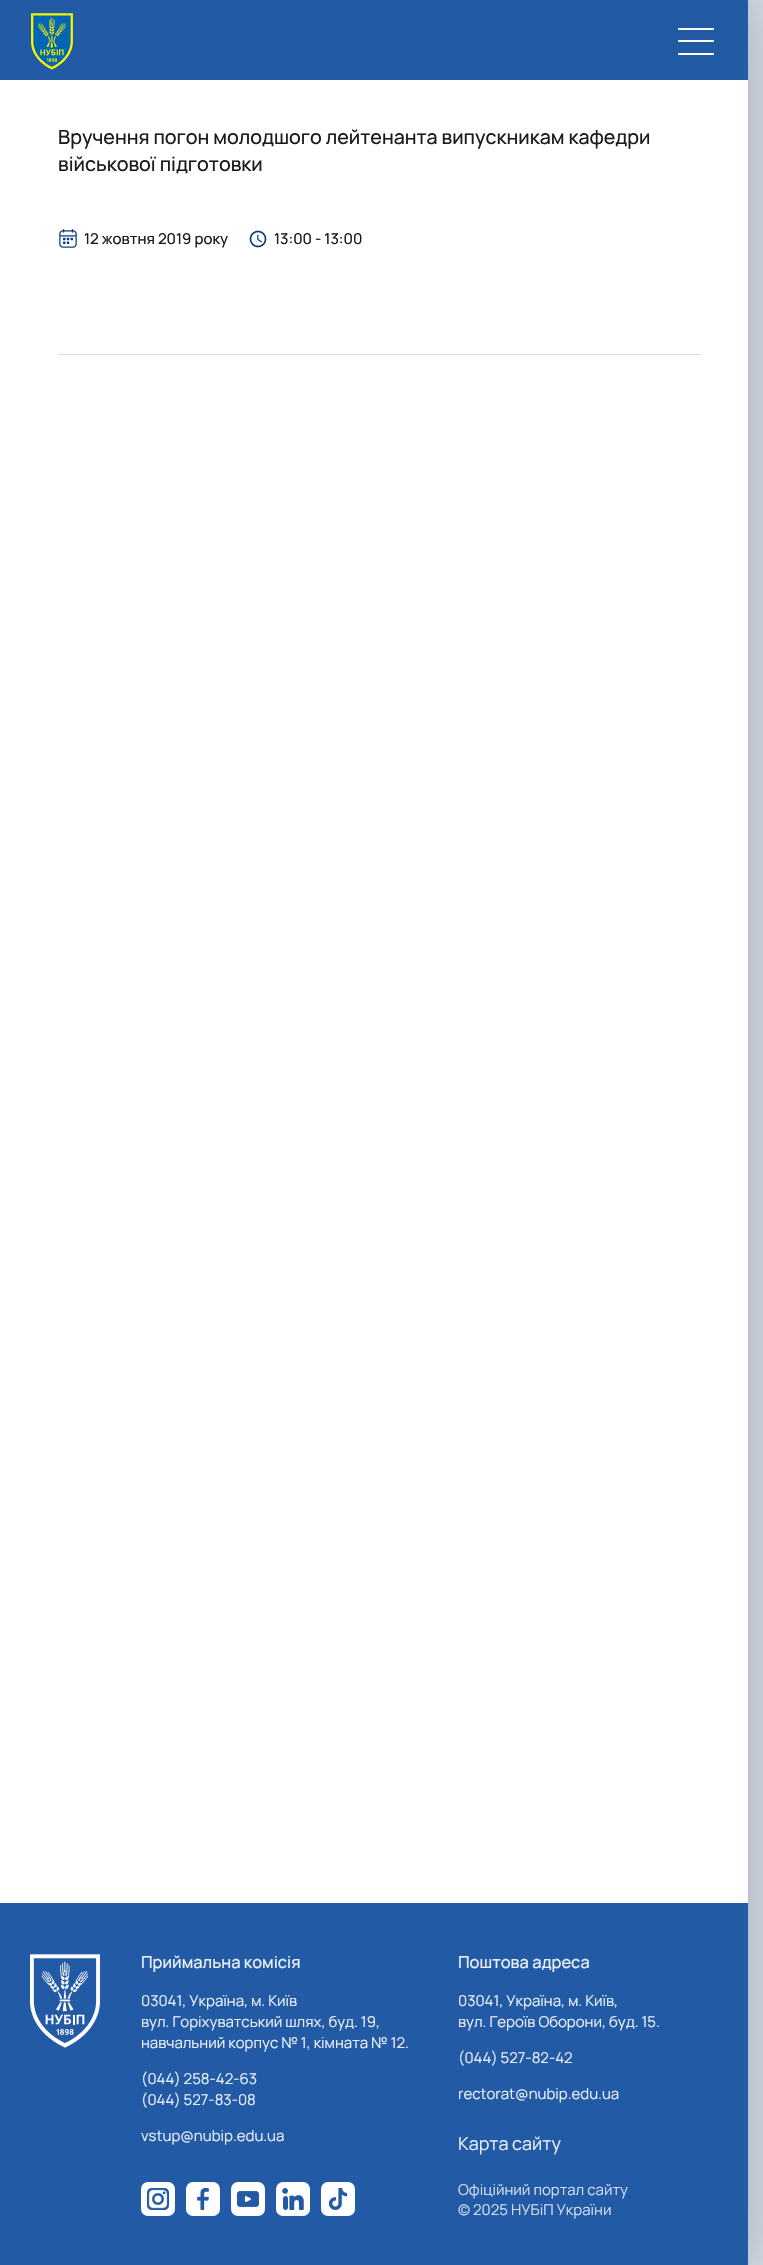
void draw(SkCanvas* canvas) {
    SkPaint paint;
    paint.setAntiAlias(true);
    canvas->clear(0xFFD0D9E5);
    paint.setColor(0x33000000);
    paint.setMaskFilter(SkMaskFilter::MakeBlur(kNormal_SkBlurStyle, 25));
    canvas->drawRect(SkRect::MakeXYWH(0, 0, 748, 2265), paint);
    paint.setMaskFilter(nullptr);
    paint.setColor(0xFF235AA6);
    canvas->drawRect(SkRect::MakeXYWH(0, 0, 748, 80), paint);
    canvas->drawImageRect(SkImages::DeferredFromEncodedData(SkData::MakeFromFileName("img1.png")), SkRect::MakeXYWH(30, 12, 44, 58), SkSamplingOptions());
    paint.setColor(0xFFFFFFFF);
    canvas->drawRoundRect(SkRect::MakeXYWH(678, 28, 36, 2), 1, 1, paint);
    canvas->drawRoundRect(SkRect::MakeXYWH(678, 40, 36, 2), 1, 1, paint);
    canvas->drawRoundRect(SkRect::MakeXYWH(678, 53, 36, 2), 1, 1, paint);
    canvas->drawRect(SkRect::MakeXYWH(0, 80, 748, 1823), paint);
    SkFont font1(fontMgr->matchFamilyStyle("Manrope", SkFontStyle(500, SkFontStyle::kNormal_Width, SkFontStyle::kUpright_Slant)), 19.6f);
    font1.setSubpixel(true);
    paint.setColor(0xFF1B1B1B);
    canvas->drawString("Вручення погон молодшого лейтенанта випускникам кафедри", 58, 144, font1, paint);
    canvas->drawString("військової підготовки", 58, 171, font1, paint);
    canvas->drawImageRect(SkImages::DeferredFromEncodedData(SkData::MakeFromFileName("img2.png")), SkRect::MakeXYWH(59, 229, 18, 19), SkSamplingOptions());
    SkFont font2(fontMgr->matchFamilyStyle("Manrope", SkFontStyle(500, SkFontStyle::kNormal_Width, SkFontStyle::kUpright_Slant)), 15);
    font2.setSubpixel(true);
    canvas->drawString("12 жовтня 2019 року", 84, 244, font2, paint);
    canvas->drawImageRect(SkImages::DeferredFromEncodedData(SkData::MakeFromFileName("img3.png")), SkRect::MakeXYWH(249, 230, 18, 18), SkSamplingOptions());
    canvas->drawString("13:00 - 13:00", 274, 244, font2, paint);
    paint.setColor(0xFFDBDBDB);
    canvas->drawRect(SkRect::MakeXYWH(58, 354, 643, 1), paint);
    paint.setColor(0xFF235AA6);
    canvas->drawRect(SkRect::MakeXYWH(0, 1903, 748, 362), paint);
    canvas->drawImageRect(SkImages::DeferredFromEncodedData(SkData::MakeFromFileName("img4.png")), SkRect::MakeXYWH(30, 1954, 70, 94), SkSamplingOptions());
    SkFont font3(fontMgr->matchFamilyStyle("Manrope", SkFontStyle(500, SkFontStyle::kNormal_Width, SkFontStyle::kUpright_Slant)), 16.5f);
    font3.setSubpixel(true);
    paint.setColor(0xFFE9EFF6);
    canvas->drawString("Приймальна комісія", 141, 1968, font3, paint);
    SkFont font4(fontMgr->matchFamilyStyle("Manrope", SkFontStyle::Normal()), 15);
    font4.setSubpixel(true);
    canvas->drawString("03041, Україна, м. Київ", 141, 2006, font4, paint);
    canvas->drawString("вул. Горіхуватський шлях, буд. 19,", 141, 2027, font4, paint);
    canvas->drawString("навчальний корпус № 1, кімната № 12.", 141, 2048, font4, paint);
    canvas->drawString("(044) 258-42-63", 141, 2084, font4, paint);
    canvas->drawString("(044) 527-83-08", 141, 2105, font4, paint);
    canvas->drawString("vstup@nubip.edu.ua", 141, 2141, font4, paint);
    canvas->drawString("Поштова адреса", 458, 1968, font3, paint);
    canvas->drawString("03041, Україна, м. Київ,", 458, 2006, font4, paint);
    canvas->drawString("вул. Героїв Оборони, буд. 15.", 458, 2027, font4, paint);
    canvas->drawString("(044) 527-82-42", 458, 2063, font4, paint);
    canvas->drawString("rectorat@nubip.edu.ua", 458, 2099, font4, paint);
    SkFont font5(fontMgr->matchFamilyStyle("Manrope", SkFontStyle::Normal()), 18);
    font5.setSubpixel(true);
    canvas->drawString("Карта сайту", 458, 2150, font5, paint);
    paint.setColor(0xFFFFFFFF);
    canvas->drawRoundRect(SkRect::MakeXYWH(141, 2182, 34, 34), 7, 7, paint);
    canvas->drawImageRect(SkImages::DeferredFromEncodedData(SkData::MakeFromFileName("img5.png")), SkRect::MakeXYWH(147, 2188, 22, 22), SkSamplingOptions());
    canvas->drawRoundRect(SkRect::MakeXYWH(186, 2182, 34, 34), 7, 7, paint);
    canvas->drawImageRect(SkImages::DeferredFromEncodedData(SkData::MakeFromFileName("img6.png")), SkRect::MakeXYWH(197, 2188, 12, 22), SkSamplingOptions());
    canvas->drawRoundRect(SkRect::MakeXYWH(231, 2182, 34, 34), 7, 7, paint);
    canvas->drawImageRect(SkImages::DeferredFromEncodedData(SkData::MakeFromFileName("img7.png")), SkRect::MakeXYWH(237, 2191, 22, 16), SkSamplingOptions());
    canvas->drawRoundRect(SkRect::MakeXYWH(276, 2182, 34, 34), 7, 7, paint);
    canvas->drawImageRect(SkImages::DeferredFromEncodedData(SkData::MakeFromFileName("img8.png")), SkRect::MakeXYWH(282, 2188, 22, 22), SkSamplingOptions());
    canvas->drawRoundRect(SkRect::MakeXYWH(321, 2182, 34, 34), 7, 7, paint);
    canvas->drawImageRect(SkImages::DeferredFromEncodedData(SkData::MakeFromFileName("img9.png")), SkRect::MakeXYWH(328, 2188, 20, 22), SkSamplingOptions());
    paint.setColor(0xFFD3DEED);
    canvas->drawString("Офіційний портал сайту", 458, 2195, font4, paint);
    canvas->drawString("© 2025 НУБіП України", 458, 2215, font4, paint);
}
